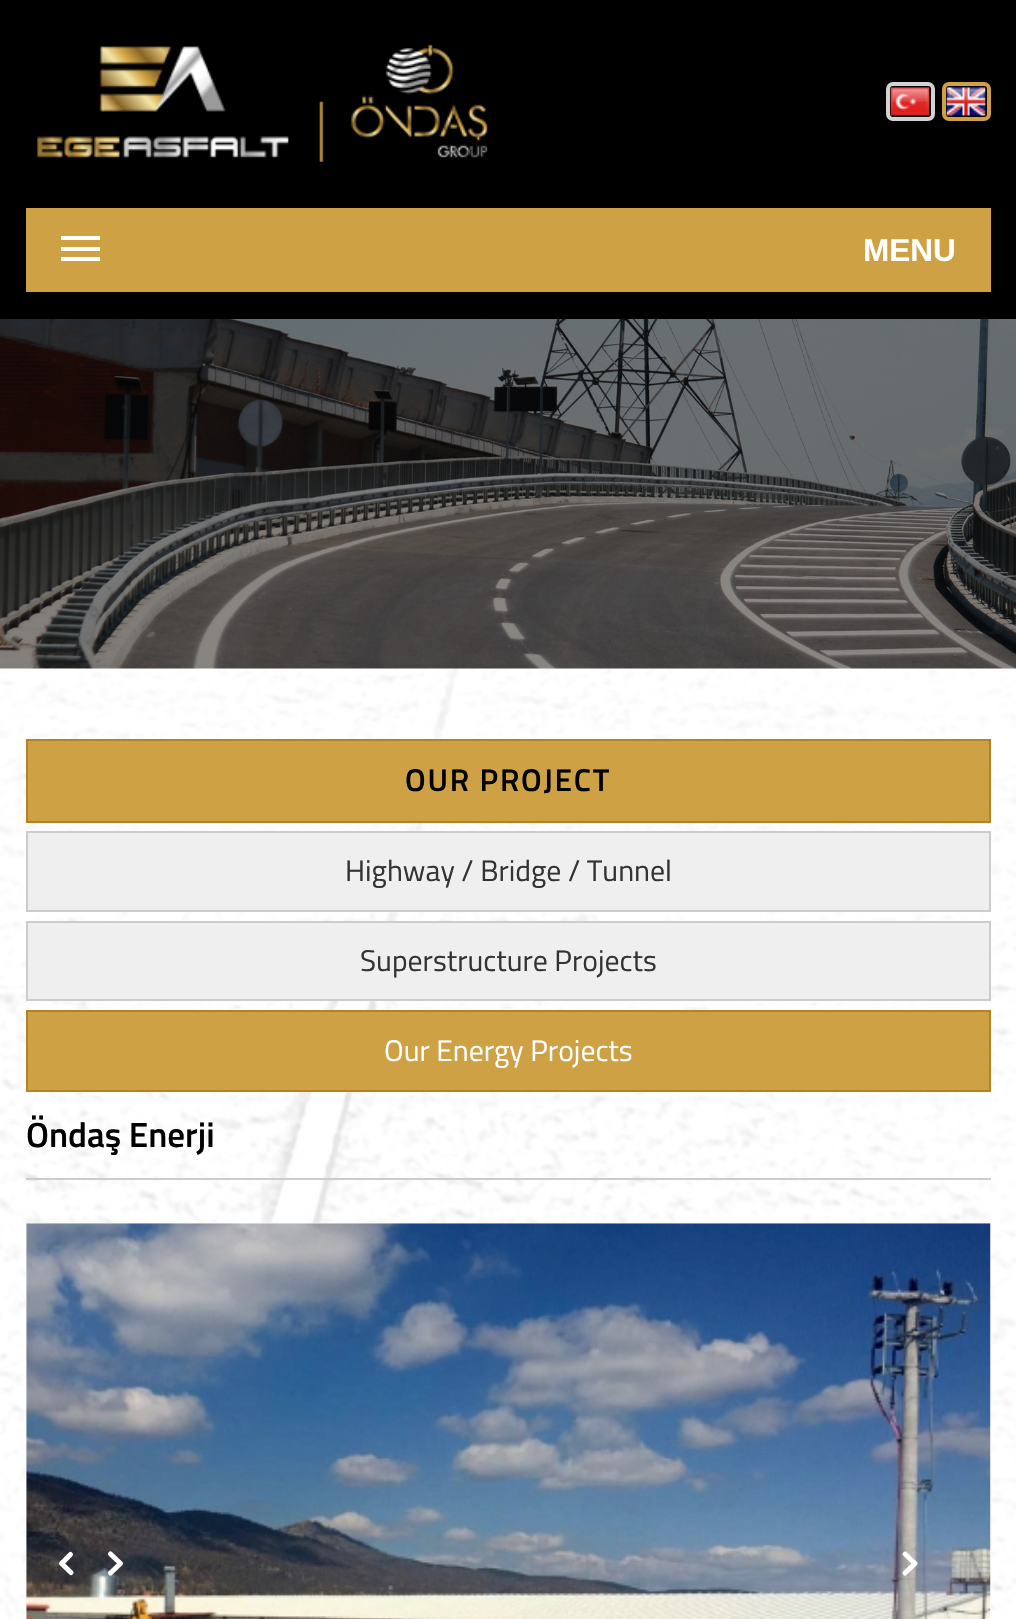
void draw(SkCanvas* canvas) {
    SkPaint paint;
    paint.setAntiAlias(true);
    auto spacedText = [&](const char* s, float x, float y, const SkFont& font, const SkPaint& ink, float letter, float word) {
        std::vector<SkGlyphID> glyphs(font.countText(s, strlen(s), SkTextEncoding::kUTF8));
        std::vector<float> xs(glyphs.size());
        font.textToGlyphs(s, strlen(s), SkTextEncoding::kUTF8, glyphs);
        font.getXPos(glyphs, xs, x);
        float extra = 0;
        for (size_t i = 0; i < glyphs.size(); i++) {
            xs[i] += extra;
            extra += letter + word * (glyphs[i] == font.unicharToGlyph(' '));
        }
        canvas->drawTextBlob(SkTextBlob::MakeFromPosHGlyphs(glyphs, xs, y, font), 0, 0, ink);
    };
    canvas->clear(0xFFFFFFFF);
    canvas->drawImageRect(SkImages::DeferredFromEncodedData(SkData::MakeFromFileName("img1.png")), SkRect::MakeXYWH(0, 668, 1016, 951), SkSamplingOptions());
    paint.setColor(0xFF000000);
    canvas->drawRect(SkRect::MakeXYWH(0, 0, 1016, 319), paint);
    canvas->drawImageRect(SkImages::DeferredFromEncodedData(SkData::MakeFromFileName("img2.png")), SkRect::MakeXYWH(37, 44, 451, 118), SkSamplingOptions());
    paint.setStyle(SkPaint::kStroke_Style);
    paint.setStrokeWidth(4);
    paint.setColor(0xFFD3D3D3);
    canvas->drawRoundRect(SkRect::MakeXYWH(888, 84, 45, 35), 5, 5, paint);
    canvas->drawImageRect(SkImages::DeferredFromEncodedData(SkData::MakeFromFileName("img3.png")), SkRect::MakeXYWH(890, 87, 40, 29), SkSamplingOptions());
    paint.setColor(0xFFCDA144);
    canvas->drawRoundRect(SkRect::MakeXYWH(944, 84, 45, 35), 5, 5, paint);
    canvas->drawImageRect(SkImages::DeferredFromEncodedData(SkData::MakeFromFileName("img4.png")), SkRect::MakeXYWH(946, 87, 40, 29), SkSamplingOptions());
    paint.setStyle(SkPaint::kFill_Style);
    canvas->drawRect(SkRect::MakeXYWH(26, 208, 965, 84), paint);
    paint.setColor(0xFFFFFFFF);
    canvas->drawRect(SkRect::MakeXYWH(61, 236, 39, 4), paint);
    canvas->drawRect(SkRect::MakeXYWH(61, 247, 39, 4), paint);
    SkFont font1(fontMgr->matchFamilyStyle("Liberation Sans", SkFontStyle::Bold()), 31.5f);
    font1.setSubpixel(true);
    canvas->drawString("MENU", 863, 261, font1, paint);
    canvas->drawRect(SkRect::MakeXYWH(61, 257, 39, 4), paint);
    canvas->drawImageRect(SkImages::DeferredFromEncodedData(SkData::MakeFromFileName("img5.png")), SkRect::MakeXYWH(0, 319, 1016, 350), SkSamplingOptions());
    paint.setColor(0xFFCDA144);
    canvas->drawRect(SkRect::MakeXYWH(27, 740, 963, 82), paint);
    paint.setStyle(SkPaint::kStroke_Style);
    paint.setStrokeWidth(2);
    paint.setColor(0xFFB28223);
    canvas->drawRect(SkRect::MakeXYWH(27, 740, 963, 82), paint);
    SkFont font2(fontMgr->matchFamilyStyle("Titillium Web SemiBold", SkFontStyle(600, SkFontStyle::kNormal_Width, SkFontStyle::kUpright_Slant)), 31.5f);
    font2.setSubpixel(true);
    paint.setStyle(SkPaint::kFill_Style);
    paint.setColor(0xFF000000);
    spacedText("OUR PROJECT", 405, 791, font2, paint, 1.75f, 0);
    paint.setColor(0xFFEFEFEF);
    canvas->drawRect(SkRect::MakeXYWH(27, 832, 963, 79), paint);
    paint.setStyle(SkPaint::kStroke_Style);
    paint.setColor(0xFFCCCCCC);
    canvas->drawRect(SkRect::MakeXYWH(27, 832, 963, 79), paint);
    SkFont font3(fontMgr->matchFamilyStyle("Titillium Web", SkFontStyle::Normal()), 29.75f);
    font3.setSubpixel(true);
    paint.setStyle(SkPaint::kFill_Style);
    paint.setColor(0xFF333333);
    canvas->drawString("Highway / Bridge / Tunnel", 345, 881, font3, paint);
    paint.setColor(0xFFEFEFEF);
    canvas->drawRect(SkRect::MakeXYWH(27, 922, 963, 78), paint);
    paint.setStyle(SkPaint::kStroke_Style);
    paint.setColor(0xFFCCCCCC);
    canvas->drawRect(SkRect::MakeXYWH(27, 922, 963, 78), paint);
    paint.setStyle(SkPaint::kFill_Style);
    paint.setColor(0xFF333333);
    canvas->drawString("Superstructure Projects", 360, 971, font3, paint);
    paint.setColor(0xFFCDA144);
    canvas->drawRect(SkRect::MakeXYWH(27, 1011, 963, 80), paint);
    paint.setStyle(SkPaint::kStroke_Style);
    paint.setColor(0xFFB28223);
    canvas->drawRect(SkRect::MakeXYWH(27, 1011, 963, 80), paint);
    paint.setStyle(SkPaint::kFill_Style);
    paint.setColor(0xFFFFFFFF);
    canvas->drawString("Our Energy Projects", 384, 1061, font3, paint);
    SkFont font4(fontMgr->matchFamilyStyle("Titillium Web SemiBold", SkFontStyle(600, SkFontStyle::kNormal_Width, SkFontStyle::kUpright_Slant)), 35);
    font4.setSubpixel(true);
    paint.setColor(0xFF000000);
    canvas->drawString("Öndaş Enerji", 26, 1147, font4, paint);
    paint.setColor(0xFFCCCCCC);
    canvas->drawRect(SkRect::MakeXYWH(26, 1178, 965, 2), paint);
    paint.setColor(0xFFFFFFFF);
    canvas->drawRect(SkRect::MakeXYWH(26, 1223, 965, 396), paint);
    canvas->drawImageRect(SkImages::DeferredFromEncodedData(SkData::MakeFromFileName("img6.png")), SkRect::MakeXYWH(26, 1223, 965, 396), SkSamplingOptions());
    paint.setStyle(SkPaint::kStroke_Style);
    paint.setStrokeWidth(5);
    paint.setStrokeCap(SkPaint::kRound_Cap);
    paint.setStrokeJoin(SkPaint::kRound_Join);
    canvas->drawPath(SkPathBuilder().moveTo(71, 1572.5f).lineTo(61.5f, 1563.5f).lineTo(70.5f, 1554.5f).detach(), paint);
    canvas->drawPath(SkPathBuilder().moveTo(110.5f, 1573).lineTo(120.5f, 1563.5f).lineTo(110.5f, 1554).detach(), paint);
    canvas->save();
    canvas->clipPath(SkPathBuilder().moveTo(928, 1544).lineTo(929, 1544).cubicTo(951.5f, 1544, 970, 1562.5f, 970, 1585).cubicTo(970, 1607.5f, 951.5f, 1626, 929, 1626).lineTo(928, 1626).cubicTo(905.5f, 1626, 887, 1607.5f, 887, 1585).cubicTo(887, 1562.5f, 905.5f, 1544, 928, 1544).close().detach(), true);
    canvas->drawPath(SkPathBuilder().moveTo(905, 1573).lineTo(915, 1563.5f).lineTo(905, 1554).detach(), paint);
    canvas->restore();
}
